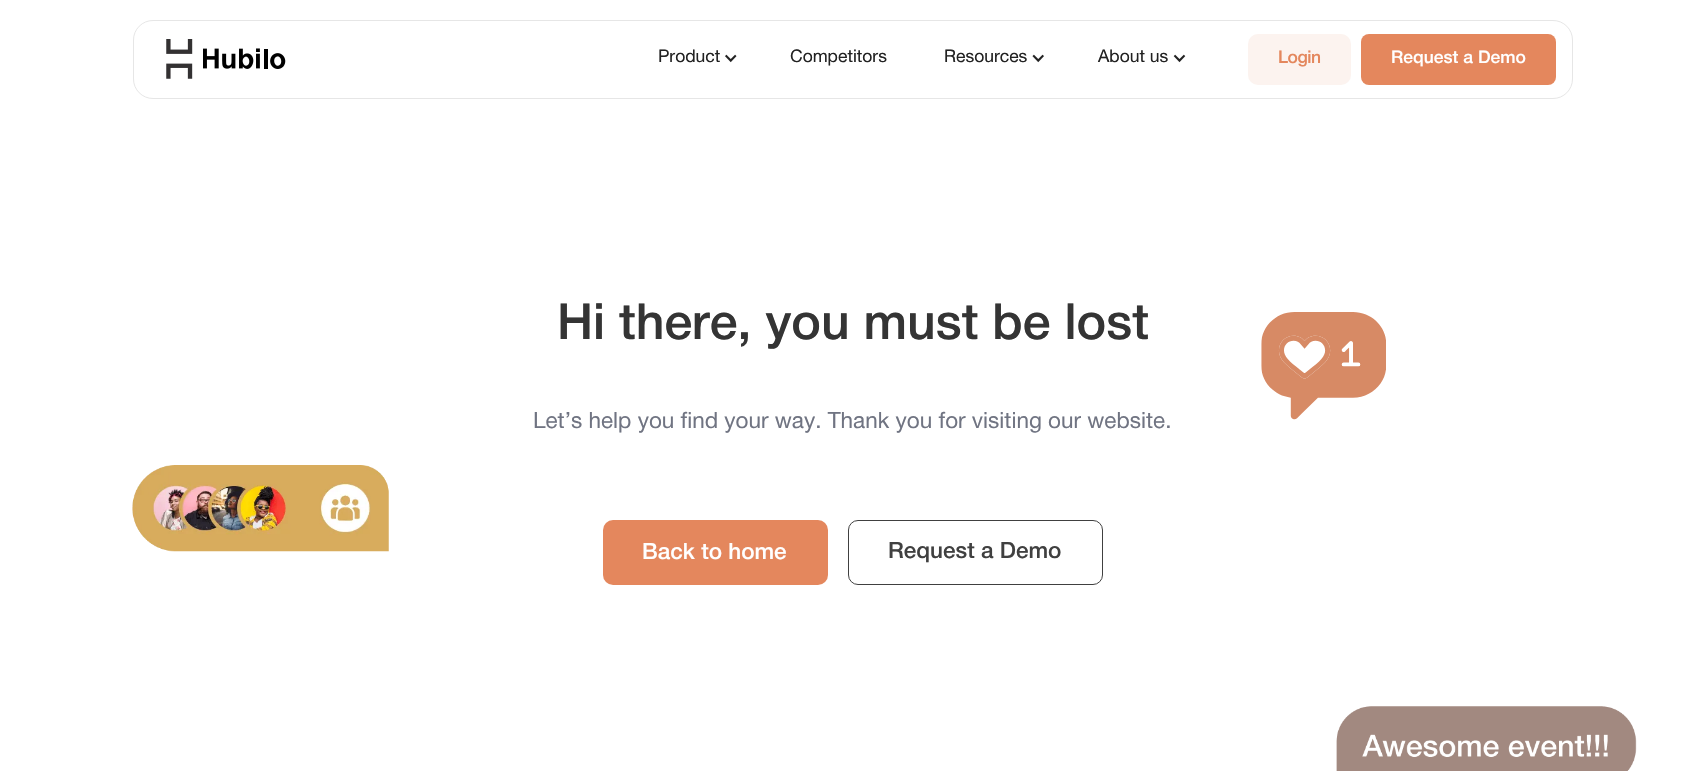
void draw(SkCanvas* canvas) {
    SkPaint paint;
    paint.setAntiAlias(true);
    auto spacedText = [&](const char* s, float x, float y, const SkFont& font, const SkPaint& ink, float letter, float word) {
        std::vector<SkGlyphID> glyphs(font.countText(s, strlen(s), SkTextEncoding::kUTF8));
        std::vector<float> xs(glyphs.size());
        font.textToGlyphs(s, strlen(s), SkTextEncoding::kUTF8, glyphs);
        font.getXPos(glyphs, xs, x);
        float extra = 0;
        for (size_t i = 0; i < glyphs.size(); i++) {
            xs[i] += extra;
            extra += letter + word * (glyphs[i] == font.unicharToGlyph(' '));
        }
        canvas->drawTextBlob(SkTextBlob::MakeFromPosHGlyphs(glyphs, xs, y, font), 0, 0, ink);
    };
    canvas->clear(0xFFFFFFFF);
    paint.setStyle(SkPaint::kStroke_Style);
    paint.setStrokeWidth(1);
    paint.setColor(0xFFE6E6E6);
    canvas->drawRoundRect(SkRect::MakeXYWH(133.5f, 20.5f, 1439, 78), 19.5f, 19.5f, paint);
    canvas->drawImageRect(SkImages::DeferredFromEncodedData(SkData::MakeFromFileName("img1.png")), SkRect::MakeXYWH(166, 39, 27, 40), SkSamplingOptions());
    canvas->drawImageRect(SkImages::DeferredFromEncodedData(SkData::MakeFromFileName("img2.png")), SkRect::MakeXYWH(203, 48, 83, 21), SkSamplingOptions());
    SkFont font1(fontMgr->matchFamilyStyle("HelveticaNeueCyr", SkFontStyle::Normal()), 17.5f);
    font1.setSubpixel(true);
    paint.setStyle(SkPaint::kFill_Style);
    paint.setColor(0xFF222222);
    canvas->drawString("Product", 658, 62, font1, paint);
    canvas->drawImageRect(SkImages::DeferredFromEncodedData(SkData::MakeFromFileName("img3.png")), SkRect::MakeXYWH(725, 54, 12, 9), SkSamplingOptions());
    canvas->drawString("Competitors", 790, 62, font1, paint);
    canvas->drawString("Resources", 944, 62, font1, paint);
    canvas->drawImageRect(SkImages::DeferredFromEncodedData(SkData::MakeFromFileName("img4.png")), SkRect::MakeXYWH(1032, 54, 12, 9), SkSamplingOptions());
    canvas->drawString("About us", 1098, 62, font1, paint);
    canvas->drawImageRect(SkImages::DeferredFromEncodedData(SkData::MakeFromFileName("img5.png")), SkRect::MakeXYWH(1173, 54, 13, 9), SkSamplingOptions());
    paint.setColor(0xFFFCF3EF);
    canvas->drawRoundRect(SkRect::MakeXYWH(1248, 34, 103, 51), 10, 10, paint);
    SkFont font2(fontMgr->matchFamilyStyle("HelveticaNeueCyr", SkFontStyle(500, SkFontStyle::kNormal_Width, SkFontStyle::kUpright_Slant)), 17.5f);
    font2.setSubpixel(true);
    paint.setColor(0xFFE4875D);
    spacedText("Login", 1278, 63, font2, paint, -0.5f, 0);
    canvas->drawRoundRect(SkRect::MakeXYWH(1361, 34, 195, 51), 8, 8, paint);
    paint.setColor(0xFFFFFFFF);
    canvas->drawString("Request a Demo", 1391, 63, font2, paint);
    SkFont font3(fontMgr->matchFamilyStyle("HelveticaNeueCyr", SkFontStyle(500, SkFontStyle::kNormal_Width, SkFontStyle::kUpright_Slant)), 50);
    font3.setSubpixel(true);
    paint.setColor(0xFF343434);
    canvas->drawString("Hi there, you must be lost", 557, 339, font3, paint);
    SkFont font4(fontMgr->matchFamilyStyle("HelveticaNeueCyr", SkFontStyle::Normal()), 22.5f);
    font4.setSubpixel(true);
    paint.setColor(0xFF707482);
    canvas->drawString("Let’s help you find your way. Thank you for visiting our website.", 533, 428, font4, paint);
    paint.setColor(0xFFE4875D);
    canvas->drawRoundRect(SkRect::MakeXYWH(603, 520, 225, 65), 10, 10, paint);
    SkFont font5(fontMgr->matchFamilyStyle("HelveticaNeueCyr", SkFontStyle(500, SkFontStyle::kNormal_Width, SkFontStyle::kUpright_Slant)), 22.5f);
    font5.setSubpixel(true);
    paint.setColor(0xFFFFFFFF);
    canvas->drawString("Back to home", 642, 559, font5, paint);
    paint.setStyle(SkPaint::kStroke_Style);
    paint.setColor(0xFF404040);
    canvas->drawRoundRect(SkRect::MakeXYWH(848.5f, 520.5f, 254, 64), 9.5f, 9.5f, paint);
    paint.setStyle(SkPaint::kFill_Style);
    canvas->drawString("Request a Demo", 888, 558, font5, paint);
    canvas->drawImageRect(SkImages::DeferredFromEncodedData(SkData::MakeFromFileName("img6.png")), SkRect::MakeXYWH(1261, 312, 125, 108), SkSamplingOptions());
    canvas->drawImageRect(SkImages::DeferredFromEncodedData(SkData::MakeFromFileName("img7.png")), SkRect::MakeXYWH(132, 465, 257, 87), SkSamplingOptions());
    canvas->drawImageRect(SkImages::DeferredFromEncodedData(SkData::MakeFromFileName("img8.png")), SkRect::MakeXYWH(1336, 706, 301, 65), SkSamplingOptions());
}
